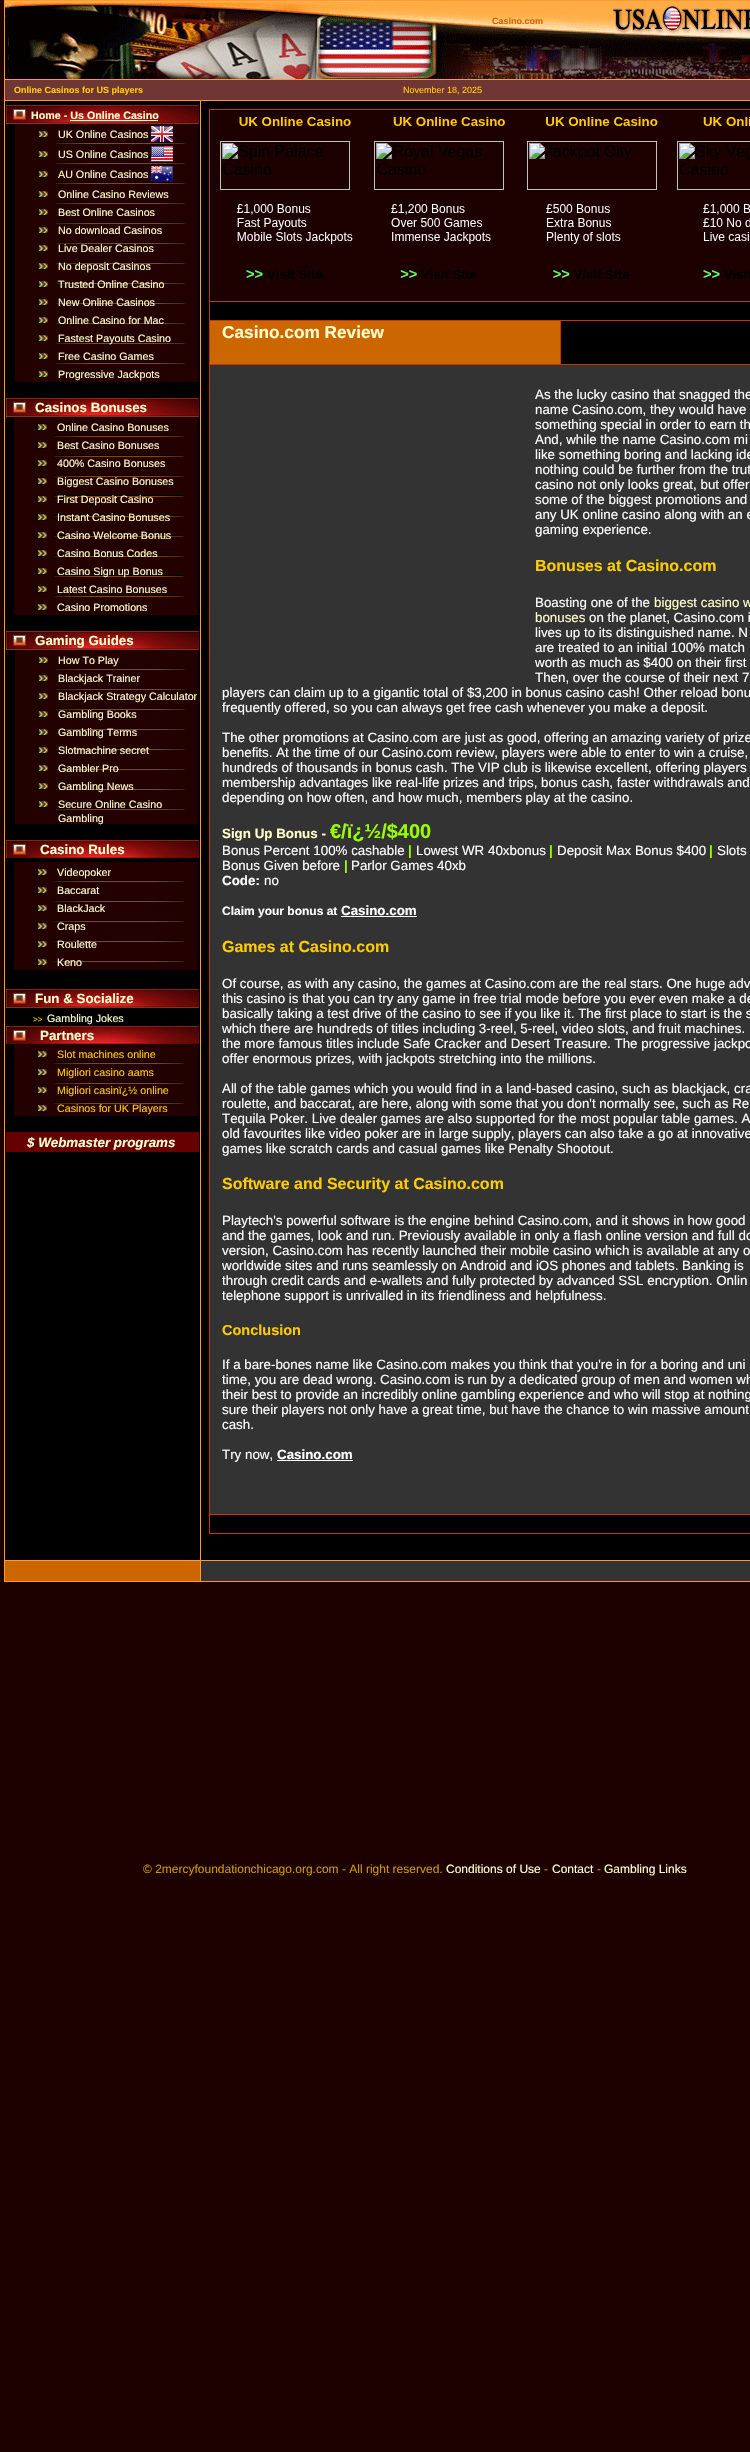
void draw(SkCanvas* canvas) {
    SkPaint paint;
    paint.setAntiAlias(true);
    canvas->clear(0xFF1C0100);
    paint.setColor(0xFFFF9933);
    canvas->drawRect(SkRect::MakeXYWH(4, 0, 746, 1582), paint);
    canvas->drawImageRect(SkImages::DeferredFromEncodedData(SkData::MakeFromFileName("img1.png")), SkRect::MakeXYWH(5, 1, 745, 78), SkSamplingOptions());
    SkFont font1(fontMgr->matchFamilyStyle("Liberation Sans", SkFontStyle::Bold()), 9);
    font1.setSubpixel(true);
    paint.setColor(0xFFCC6600);
    canvas->drawString("Casino.com", 492, 24, font1, paint);
    paint.setColor(0xFF703635);
    canvas->drawRect(SkRect::MakeXYWH(5, 80, 745, 20), paint);
    paint.setColor(0xFFFFCC00);
    canvas->drawString("Online Casinos for US players", 14, 93, font1, paint);
    SkFont font2(fontMgr->matchFamilyStyle("Liberation Sans", SkFontStyle::Normal()), 9);
    font2.setSubpixel(true);
    canvas->drawString("November 18, 2025", 403, 93, font2, paint);
    paint.setColor(0xFF000000);
    canvas->drawRect(SkRect::MakeXYWH(5, 101, 195, 1459), paint);
    paint.setColor(0xFF660000);
    canvas->drawRect(SkRect::MakeXYWH(6, 1132, 193, 20), paint);
    canvas->drawImageRect(SkImages::DeferredFromEncodedData(SkData::MakeFromFileName("img2.png")), SkRect::MakeXYWH(6, 105, 193, 19), SkSamplingOptions());
    SkFont font3(fontMgr->matchFamilyStyle("Liberation Sans", SkFontStyle::Bold()), 10.7f);
    font3.setSubpixel(true);
    paint.setColor(0xFFFFFFCC);
    canvas->drawString("Home - Us Online Casino", 31, 119, font3, paint);
    canvas->drawRect(SkRect::MakeXYWH(70, 120, 88, 1), paint);
    canvas->drawImageRect(SkImages::DeferredFromEncodedData(SkData::MakeFromFileName("img3.png")), SkRect::MakeXYWH(15, 124, 183, 258), SkSamplingOptions());
    canvas->drawImageRect(SkImages::DeferredFromEncodedData(SkData::MakeFromFileName("img4.png")), SkRect::MakeXYWH(37, 131, 11, 7), SkSamplingOptions());
    SkFont font4(fontMgr->matchFamilyStyle("Liberation Sans", SkFontStyle::Normal()), 10.7f);
    font4.setSubpixel(true);
    canvas->drawString("UK Online Casinos", 58, 138, font4, paint);
    canvas->drawImageRect(SkImages::DeferredFromEncodedData(SkData::MakeFromFileName("img5.png")), SkRect::MakeXYWH(151, 126, 22, 16), SkSamplingOptions());
    canvas->drawImageRect(SkImages::DeferredFromEncodedData(SkData::MakeFromFileName("img4.png")), SkRect::MakeXYWH(37, 151, 11, 7), SkSamplingOptions());
    canvas->drawString("US Online Casinos", 58, 158, font4, paint);
    canvas->drawImageRect(SkImages::DeferredFromEncodedData(SkData::MakeFromFileName("img6.png")), SkRect::MakeXYWH(151, 146, 22, 16), SkSamplingOptions());
    canvas->drawImageRect(SkImages::DeferredFromEncodedData(SkData::MakeFromFileName("img4.png")), SkRect::MakeXYWH(37, 171, 11, 7), SkSamplingOptions());
    canvas->drawString("AU Online Casinos", 58, 178, font4, paint);
    canvas->drawImageRect(SkImages::DeferredFromEncodedData(SkData::MakeFromFileName("img7.png")), SkRect::MakeXYWH(151, 166, 22, 16), SkSamplingOptions());
    canvas->drawImageRect(SkImages::DeferredFromEncodedData(SkData::MakeFromFileName("img4.png")), SkRect::MakeXYWH(37, 191, 11, 7), SkSamplingOptions());
    canvas->drawString("Online Casino Reviews", 58, 198, font4, paint);
    canvas->drawImageRect(SkImages::DeferredFromEncodedData(SkData::MakeFromFileName("img4.png")), SkRect::MakeXYWH(37, 209, 11, 7), SkSamplingOptions());
    canvas->drawString("Best Online Casinos", 58, 216, font4, paint);
    canvas->drawImageRect(SkImages::DeferredFromEncodedData(SkData::MakeFromFileName("img4.png")), SkRect::MakeXYWH(37, 227, 11, 7), SkSamplingOptions());
    canvas->drawString("No download Casinos", 58, 234, font4, paint);
    canvas->drawImageRect(SkImages::DeferredFromEncodedData(SkData::MakeFromFileName("img4.png")), SkRect::MakeXYWH(37, 245, 11, 7), SkSamplingOptions());
    canvas->drawString("Live Dealer Casinos", 58, 252, font4, paint);
    canvas->drawImageRect(SkImages::DeferredFromEncodedData(SkData::MakeFromFileName("img4.png")), SkRect::MakeXYWH(37, 263, 11, 7), SkSamplingOptions());
    canvas->drawString("No deposit Casinos", 58, 270, font4, paint);
    canvas->drawImageRect(SkImages::DeferredFromEncodedData(SkData::MakeFromFileName("img4.png")), SkRect::MakeXYWH(37, 281, 11, 7), SkSamplingOptions());
    canvas->drawString("Trusted Online Casino", 58, 288, font4, paint);
    canvas->drawImageRect(SkImages::DeferredFromEncodedData(SkData::MakeFromFileName("img4.png")), SkRect::MakeXYWH(37, 299, 11, 7), SkSamplingOptions());
    canvas->drawString("New Online Casinos", 58, 306, font4, paint);
    canvas->drawImageRect(SkImages::DeferredFromEncodedData(SkData::MakeFromFileName("img4.png")), SkRect::MakeXYWH(37, 317, 11, 7), SkSamplingOptions());
    canvas->drawString("Online Casino for Mac", 58, 324, font4, paint);
    canvas->drawImageRect(SkImages::DeferredFromEncodedData(SkData::MakeFromFileName("img4.png")), SkRect::MakeXYWH(37, 335, 11, 7), SkSamplingOptions());
    canvas->drawString("Fastest Payouts Casino", 58, 342, font4, paint);
    canvas->drawImageRect(SkImages::DeferredFromEncodedData(SkData::MakeFromFileName("img4.png")), SkRect::MakeXYWH(37, 353, 11, 7), SkSamplingOptions());
    canvas->drawString("Free Casino Games", 58, 360, font4, paint);
    canvas->drawImageRect(SkImages::DeferredFromEncodedData(SkData::MakeFromFileName("img4.png")), SkRect::MakeXYWH(37, 371, 11, 7), SkSamplingOptions());
    canvas->drawString("Progressive Jackpots", 58, 378, font4, paint);
    canvas->drawImageRect(SkImages::DeferredFromEncodedData(SkData::MakeFromFileName("img2.png")), SkRect::MakeXYWH(6, 398, 193, 19), SkSamplingOptions());
    SkFont font5(fontMgr->matchFamilyStyle("Liberation Sans", SkFontStyle::Bold()), 13.35f);
    font5.setSubpixel(true);
    canvas->drawString("Casinos Bonuses", 35, 412, font5, paint);
    canvas->drawImageRect(SkImages::DeferredFromEncodedData(SkData::MakeFromFileName("img8.png")), SkRect::MakeXYWH(14, 417, 184, 198), SkSamplingOptions());
    canvas->drawImageRect(SkImages::DeferredFromEncodedData(SkData::MakeFromFileName("img4.png")), SkRect::MakeXYWH(36, 424, 11, 7), SkSamplingOptions());
    canvas->drawString("Online Casino Bonuses", 57, 431, font4, paint);
    canvas->drawImageRect(SkImages::DeferredFromEncodedData(SkData::MakeFromFileName("img4.png")), SkRect::MakeXYWH(36, 442, 11, 7), SkSamplingOptions());
    canvas->drawString("Best Casino Bonuses", 57, 449, font4, paint);
    canvas->drawImageRect(SkImages::DeferredFromEncodedData(SkData::MakeFromFileName("img4.png")), SkRect::MakeXYWH(36, 460, 11, 7), SkSamplingOptions());
    canvas->drawString("400% Casino Bonuses", 57, 467, font4, paint);
    canvas->drawImageRect(SkImages::DeferredFromEncodedData(SkData::MakeFromFileName("img4.png")), SkRect::MakeXYWH(36, 478, 11, 7), SkSamplingOptions());
    canvas->drawString("Biggest Casino Bonuses", 57, 485, font4, paint);
    canvas->drawImageRect(SkImages::DeferredFromEncodedData(SkData::MakeFromFileName("img4.png")), SkRect::MakeXYWH(36, 496, 11, 7), SkSamplingOptions());
    canvas->drawString("First Deposit Casino", 57, 503, font4, paint);
    canvas->drawImageRect(SkImages::DeferredFromEncodedData(SkData::MakeFromFileName("img4.png")), SkRect::MakeXYWH(36, 514, 11, 7), SkSamplingOptions());
    canvas->drawString("Instant Casino Bonuses", 57, 521, font4, paint);
    canvas->drawImageRect(SkImages::DeferredFromEncodedData(SkData::MakeFromFileName("img4.png")), SkRect::MakeXYWH(36, 532, 11, 7), SkSamplingOptions());
    canvas->drawString("Casino Welcome Bonus", 57, 539, font4, paint);
    canvas->drawImageRect(SkImages::DeferredFromEncodedData(SkData::MakeFromFileName("img4.png")), SkRect::MakeXYWH(36, 550, 11, 7), SkSamplingOptions());
    canvas->drawString("Casino Bonus Codes", 57, 557, font4, paint);
    canvas->drawImageRect(SkImages::DeferredFromEncodedData(SkData::MakeFromFileName("img4.png")), SkRect::MakeXYWH(36, 568, 11, 7), SkSamplingOptions());
    canvas->drawString("Casino Sign up Bonus", 57, 575, font4, paint);
    canvas->drawImageRect(SkImages::DeferredFromEncodedData(SkData::MakeFromFileName("img4.png")), SkRect::MakeXYWH(36, 586, 11, 7), SkSamplingOptions());
    canvas->drawString("Latest Casino Bonuses", 57, 593, font4, paint);
    canvas->drawImageRect(SkImages::DeferredFromEncodedData(SkData::MakeFromFileName("img4.png")), SkRect::MakeXYWH(36, 604, 11, 7), SkSamplingOptions());
    canvas->drawString("Casino Promotions", 57, 611, font4, paint);
    canvas->drawImageRect(SkImages::DeferredFromEncodedData(SkData::MakeFromFileName("img2.png")), SkRect::MakeXYWH(6, 631, 193, 19), SkSamplingOptions());
    canvas->drawString("Gaming Guides", 35, 645, font5, paint);
    canvas->drawImageRect(SkImages::DeferredFromEncodedData(SkData::MakeFromFileName("img9.png")), SkRect::MakeXYWH(15, 650, 183, 174), SkSamplingOptions());
    canvas->drawImageRect(SkImages::DeferredFromEncodedData(SkData::MakeFromFileName("img4.png")), SkRect::MakeXYWH(37, 657, 11, 7), SkSamplingOptions());
    canvas->drawString("How To Play", 58, 664, font4, paint);
    canvas->drawImageRect(SkImages::DeferredFromEncodedData(SkData::MakeFromFileName("img4.png")), SkRect::MakeXYWH(37, 675, 11, 7), SkSamplingOptions());
    canvas->drawString("Blackjack Trainer", 58, 682, font4, paint);
    canvas->drawImageRect(SkImages::DeferredFromEncodedData(SkData::MakeFromFileName("img4.png")), SkRect::MakeXYWH(37, 693, 11, 7), SkSamplingOptions());
    canvas->drawString("Blackjack Strategy Calculator", 58, 700, font4, paint);
    canvas->drawImageRect(SkImages::DeferredFromEncodedData(SkData::MakeFromFileName("img4.png")), SkRect::MakeXYWH(37, 711, 11, 7), SkSamplingOptions());
    canvas->drawString("Gambling Books", 58, 718, font4, paint);
    canvas->drawImageRect(SkImages::DeferredFromEncodedData(SkData::MakeFromFileName("img4.png")), SkRect::MakeXYWH(37, 729, 11, 7), SkSamplingOptions());
    canvas->drawString("Gambling Terms", 58, 736, font4, paint);
    canvas->drawImageRect(SkImages::DeferredFromEncodedData(SkData::MakeFromFileName("img4.png")), SkRect::MakeXYWH(37, 747, 11, 7), SkSamplingOptions());
    canvas->drawString("Slotmachine secret", 58, 754, font4, paint);
    canvas->drawImageRect(SkImages::DeferredFromEncodedData(SkData::MakeFromFileName("img4.png")), SkRect::MakeXYWH(37, 765, 11, 7), SkSamplingOptions());
    canvas->drawString("Gambler Pro", 58, 772, font4, paint);
    canvas->drawImageRect(SkImages::DeferredFromEncodedData(SkData::MakeFromFileName("img4.png")), SkRect::MakeXYWH(37, 783, 11, 7), SkSamplingOptions());
    canvas->drawString("Gambling News", 58, 790, font4, paint);
    canvas->drawImageRect(SkImages::DeferredFromEncodedData(SkData::MakeFromFileName("img4.png")), SkRect::MakeXYWH(37, 801, 11, 7), SkSamplingOptions());
    canvas->drawString("Secure Online Casino", 58, 808, font4, paint);
    canvas->drawString("Gambling", 58, 822, font4, paint);
    canvas->drawImageRect(SkImages::DeferredFromEncodedData(SkData::MakeFromFileName("img10.png")), SkRect::MakeXYWH(6, 840, 193, 18), SkSamplingOptions());
    canvas->drawString("Casino Rules", 40, 854, font5, paint);
    canvas->drawImageRect(SkImages::DeferredFromEncodedData(SkData::MakeFromFileName("img11.png")), SkRect::MakeXYWH(14, 862, 184, 108), SkSamplingOptions());
    canvas->drawImageRect(SkImages::DeferredFromEncodedData(SkData::MakeFromFileName("img4.png")), SkRect::MakeXYWH(36, 869, 11, 7), SkSamplingOptions());
    canvas->drawString("Videopoker", 57, 876, font4, paint);
    canvas->drawImageRect(SkImages::DeferredFromEncodedData(SkData::MakeFromFileName("img4.png")), SkRect::MakeXYWH(36, 887, 11, 7), SkSamplingOptions());
    canvas->drawString("Baccarat", 57, 894, font4, paint);
    canvas->drawImageRect(SkImages::DeferredFromEncodedData(SkData::MakeFromFileName("img4.png")), SkRect::MakeXYWH(36, 905, 11, 7), SkSamplingOptions());
    canvas->drawString("BlackJack", 57, 912, font4, paint);
    canvas->drawImageRect(SkImages::DeferredFromEncodedData(SkData::MakeFromFileName("img4.png")), SkRect::MakeXYWH(36, 923, 11, 7), SkSamplingOptions());
    canvas->drawString("Craps", 57, 930, font4, paint);
    canvas->drawImageRect(SkImages::DeferredFromEncodedData(SkData::MakeFromFileName("img4.png")), SkRect::MakeXYWH(36, 941, 11, 7), SkSamplingOptions());
    canvas->drawString("Roulette", 57, 948, font4, paint);
    canvas->drawImageRect(SkImages::DeferredFromEncodedData(SkData::MakeFromFileName("img4.png")), SkRect::MakeXYWH(36, 959, 11, 7), SkSamplingOptions());
    canvas->drawString("Keno", 57, 966, font4, paint);
    canvas->drawImageRect(SkImages::DeferredFromEncodedData(SkData::MakeFromFileName("img2.png")), SkRect::MakeXYWH(6, 989, 193, 19), SkSamplingOptions());
    canvas->drawString("Fun & Socialize", 35, 1003, font5, paint);
    SkFont font6(fontMgr->matchFamilyStyle("Liberation Sans", SkFontStyle::Normal()), 8);
    font6.setSubpixel(true);
    paint.setColor(0xFFFFCC00);
    canvas->drawString(">>", 33, 1022, font6, paint);
    paint.setColor(0xFFFFFFCC);
    canvas->drawString("Gambling Jokes", 47, 1022, font4, paint);
    canvas->drawImageRect(SkImages::DeferredFromEncodedData(SkData::MakeFromFileName("img10.png")), SkRect::MakeXYWH(6, 1026, 193, 18), SkSamplingOptions());
    canvas->drawString("Partners", 40, 1040, font5, paint);
    canvas->drawImageRect(SkImages::DeferredFromEncodedData(SkData::MakeFromFileName("img12.png")), SkRect::MakeXYWH(14, 1044, 184, 72), SkSamplingOptions());
    canvas->drawImageRect(SkImages::DeferredFromEncodedData(SkData::MakeFromFileName("img4.png")), SkRect::MakeXYWH(36, 1051, 11, 7), SkSamplingOptions());
    paint.setColor(0xFFFFCC00);
    canvas->drawString("Slot machines online", 57, 1058, font4, paint);
    canvas->drawImageRect(SkImages::DeferredFromEncodedData(SkData::MakeFromFileName("img4.png")), SkRect::MakeXYWH(36, 1069, 11, 7), SkSamplingOptions());
    canvas->drawString("Migliori casino aams", 57, 1076, font4, paint);
    canvas->drawImageRect(SkImages::DeferredFromEncodedData(SkData::MakeFromFileName("img4.png")), SkRect::MakeXYWH(36, 1087, 11, 7), SkSamplingOptions());
    canvas->drawString("Migliori casinï¿½ online", 57, 1094, font4, paint);
    canvas->drawImageRect(SkImages::DeferredFromEncodedData(SkData::MakeFromFileName("img4.png")), SkRect::MakeXYWH(36, 1105, 11, 7), SkSamplingOptions());
    canvas->drawString("Casinos for UK Players", 57, 1112, font4, paint);
    SkFont font7(fontMgr->matchFamilyStyle("Liberation Sans", SkFontStyle::BoldItalic()), 13.35f);
    font7.setSubpixel(true);
    paint.setColor(0xFFFFFFCC);
    canvas->drawString("$ Webmaster programs", 27, 1147, font7, paint);
    paint.setColor(0xFF000000);
    canvas->drawRect(SkRect::MakeXYWH(201, 101, 549, 1459), paint);
    paint.setColor(0xFFCC3300);
    canvas->drawRect(SkRect::MakeXYWH(209, 109, 541, 1425), paint);
    paint.setColor(0xFF000000);
    canvas->drawRect(SkRect::MakeXYWH(210, 110, 540, 191), paint);
    canvas->drawImageRect(SkImages::DeferredFromEncodedData(SkData::MakeFromFileName("img13.png")), SkRect::MakeXYWH(211, 111, 539, 189), SkSamplingOptions());
    canvas->drawRect(SkRect::MakeXYWH(210, 302, 540, 18), paint);
    paint.setColor(0xFFCC6600);
    canvas->drawRect(SkRect::MakeXYWH(210, 321, 350, 43), paint);
    SkFont font8(fontMgr->matchFamilyStyle("Liberation Sans", SkFontStyle::Bold()), 17.25f);
    font8.setSubpixel(true);
    paint.setColor(0xFFFFFFCC);
    canvas->drawString("Casino.com Review", 222, 338, font8, paint);
    paint.setColor(0xFF000000);
    canvas->drawRect(SkRect::MakeXYWH(561, 321, 189, 43), paint);
    paint.setColor(0xFF333333);
    canvas->drawRect(SkRect::MakeXYWH(210, 365, 540, 1149), paint);
    SkFont font9(fontMgr->matchFamilyStyle("Liberation Sans", SkFontStyle::Normal()), 13.35f);
    font9.setSubpixel(true);
    paint.setColor(0xFFFFFFFF);
    canvas->drawString("As the lucky casino that snagged the", 535, 399, font9, paint);
    canvas->drawString("name Casino.com, they would have", 535, 414, font9, paint);
    canvas->drawString("something special in order to earn th", 535, 429, font9, paint);
    canvas->drawString("And, while the name Casino.com mi", 535, 444, font9, paint);
    canvas->drawString("like something boring and lacking ide", 535, 459, font9, paint);
    canvas->drawString("nothing could be further from the trut", 535, 474, font9, paint);
    canvas->drawString("casino not only looks great, but offer", 535, 489, font9, paint);
    canvas->drawString("some of the biggest promotions and", 535, 504, font9, paint);
    canvas->drawString("any UK online casino along with an e", 535, 519, font9, paint);
    canvas->drawString("gaming experience.", 535, 534, font9, paint);
    SkFont font10(fontMgr->matchFamilyStyle("Liberation Sans", SkFontStyle::Bold()), 16);
    font10.setSubpixel(true);
    paint.setColor(0xFFFFCC00);
    canvas->drawString("Bonuses at Casino.com", 535, 571, font10, paint);
    paint.setColor(0xFFFFFFFF);
    canvas->drawString("Boasting one of the", 535, 607, font9, paint);
    paint.setColor(0xFFFFFFCC);
    canvas->drawString("biggest casino w", 654, 607, font9, paint);
    canvas->drawString("bonuses", 535, 622, font9, paint);
    paint.setColor(0xFFFFFFFF);
    canvas->drawString("on the planet, Casino.com i", 589, 622, font9, paint);
    canvas->drawString("lives up to its distinguished name. N", 535, 637, font9, paint);
    canvas->drawString("are treated to an initial 100% match", 535, 652, font9, paint);
    canvas->drawString("worth as much as $400 on their first", 535, 667, font9, paint);
    canvas->drawString("Then, over the course of their next 7", 535, 682, font9, paint);
    canvas->drawString("players can claim up to a gigantic total of $3,200 in bonus casino cash! Other reload bonu", 222, 697, font9, paint);
    canvas->drawString("frequently offered, so you can always get free cash whenever you make a deposit.", 222, 712, font9, paint);
    canvas->drawString("The other promotions at Casino.com are just as good, offering an amazing variety of prize", 222, 742, font9, paint);
    canvas->drawString("benefits. At the time of our Casino.com review, players were able to enter to win a cruise,", 222, 757, font9, paint);
    canvas->drawString("hundreds of thousands in bonus cash. The VIP club is likewise excellent, offering players", 222, 772, font9, paint);
    canvas->drawString("membership advantages like real-life prizes and trips, bonus cash, faster withdrawals and", 222, 787, font9, paint);
    canvas->drawString("depending on how often, and how much, members play at the casino.", 222, 802, font9, paint);
    paint.setColor(0xFFFFFFCC);
    canvas->drawString("Sign Up Bonus -", 222, 838, font5, paint);
    SkFont font11(fontMgr->matchFamilyStyle("Liberation Sans", SkFontStyle::Bold()), 20);
    font11.setSubpixel(true);
    paint.setColor(0xFF99FF00);
    canvas->drawString("€/ï¿½/$400", 330, 838, font11, paint);
    paint.setColor(0xFFFFFFFF);
    canvas->drawString("Bonus Percent 100% cashable", 222, 855, font9, paint);
    paint.setColor(0xFF99FF00);
    canvas->drawString("|", 408, 855, font5, paint);
    paint.setColor(0xFFFFFFFF);
    canvas->drawString("Lowest WR 40xbonus", 416, 855, font9, paint);
    paint.setColor(0xFF99FF00);
    canvas->drawString("|", 549, 855, font5, paint);
    paint.setColor(0xFFFFFFFF);
    canvas->drawString("Deposit Max Bonus $400", 557, 855, font9, paint);
    paint.setColor(0xFF99FF00);
    canvas->drawString("|", 709, 855, font5, paint);
    paint.setColor(0xFFFFFFFF);
    canvas->drawString("Slots", 717, 855, font9, paint);
    canvas->drawString("Bonus Given before", 222, 870, font9, paint);
    paint.setColor(0xFF99FF00);
    canvas->drawString("|", 344, 870, font5, paint);
    paint.setColor(0xFFFFFFFF);
    canvas->drawString("Parlor Games 40xb", 351, 870, font9, paint);
    canvas->drawString("Code:", 222, 885, font5, paint);
    canvas->drawString("no", 264, 885, font9, paint);
    SkFont font12(fontMgr->matchFamilyStyle("Liberation Sans", SkFontStyle::Bold()), 12);
    font12.setSubpixel(true);
    canvas->drawString("Claim your bonus at", 222, 915, font12, paint);
    canvas->drawRect(SkRect::MakeXYWH(341, 916, 76, 1), paint);
    canvas->drawString("Casino.com", 341, 915, font5, paint);
    paint.setColor(0xFFFFCC00);
    canvas->drawString("Games at Casino.com", 222, 952, font10, paint);
    paint.setColor(0xFFFFFFFF);
    canvas->drawString("Of course, as with any casino, the games at Casino.com are the real stars. One huge adv", 222, 988, font9, paint);
    canvas->drawString("this casino is that you can try any game in free trial mode before you ever even make a de", 222, 1003, font9, paint);
    canvas->drawString("basically taking a test drive of the casino to see if you like it. The first place to start is the s", 222, 1018, font9, paint);
    canvas->drawString("which there are hundreds of titles including 3-reel, 5-reel, video slots, and fruit machines.", 222, 1033, font9, paint);
    canvas->drawString("the more famous titles include Safe Cracker and Desert Treasure. The progressive jackpo", 222, 1048, font9, paint);
    canvas->drawString("offer enormous prizes, with jackpots stretching into the millions.", 222, 1063, font9, paint);
    canvas->drawString("All of the table games which you would find in a land-based casino, such as blackjack, cra", 222, 1093, font9, paint);
    canvas->drawString("roulette, and baccarat, are here, along with some that you don't normally see, such as Re", 222, 1108, font9, paint);
    canvas->drawString("Tequila Poker. Live dealer games are also supported for the most popular table games. A", 222, 1123, font9, paint);
    canvas->drawString("old favourites like video poker are in large supply, players can also take a go at innovative", 222, 1138, font9, paint);
    canvas->drawString("games like scratch cards and casual games like Penalty Shootout.", 222, 1153, font9, paint);
    paint.setColor(0xFFFFCC00);
    canvas->drawString("Software and Security at Casino.com", 222, 1189, font10, paint);
    paint.setColor(0xFFFFFFFF);
    canvas->drawString("Playtech's powerful software is the engine behind Casino.com, and it shows in how good", 222, 1225, font9, paint);
    canvas->drawString("and the games, look and run. Previously available in only a flash online version and full do", 222, 1240, font9, paint);
    canvas->drawString("version, Casino.com has recently launched their mobile casino which is available at any o", 222, 1255, font9, paint);
    canvas->drawString("worldwide sites and runs seamlessly on Android and iOS phones and tablets. Banking is", 222, 1270, font9, paint);
    canvas->drawString("through credit cards and e-wallets and fully protected by advanced SSL encryption. Onlin", 222, 1285, font9, paint);
    canvas->drawString("telephone support is unrivalled in its friendliness and helpfulness.", 222, 1300, font9, paint);
    SkFont font13(fontMgr->matchFamilyStyle("Liberation Sans", SkFontStyle::Bold()), 14.5f);
    font13.setSubpixel(true);
    paint.setColor(0xFFFFCC00);
    canvas->drawString("Conclusion", 222, 1335, font13, paint);
    paint.setColor(0xFFFFFFFF);
    canvas->drawString("If a bare-bones name like Casino.com makes you think that you're in for a boring and uni", 222, 1369, font9, paint);
    canvas->drawString("time, you are dead wrong. Casino.com is run by a dedicated group of men and women wh", 222, 1384, font9, paint);
    canvas->drawString("their best to provide an incredibly online gambling experience and who will stop at nothing", 222, 1399, font9, paint);
    canvas->drawString("sure their players not only have a great time, but have the chance to win massive amount", 222, 1414, font9, paint);
    canvas->drawString("cash.", 222, 1429, font9, paint);
    canvas->drawString("Try now,", 222, 1459, font9, paint);
    canvas->drawString("Casino.com", 277, 1459, font5, paint);
    canvas->drawRect(SkRect::MakeXYWH(277, 1460, 76, 1), paint);
    paint.setColor(0xFF000000);
    canvas->drawRect(SkRect::MakeXYWH(210, 1515, 540, 18), paint);
    paint.setColor(0xFFCC6600);
    canvas->drawRect(SkRect::MakeXYWH(5, 1561, 195, 20), paint);
    paint.setColor(0xFF333333);
    canvas->drawRect(SkRect::MakeXYWH(201, 1561, 549, 20), paint);
    SkFont font14(fontMgr->matchFamilyStyle("Liberation Sans", SkFontStyle::Normal()), 12);
    font14.setSubpixel(true);
    paint.setColor(0xFFCC9900);
    canvas->drawString("© 2mercyfoundationchicago.org.com - All right reserved.", 143, 1873, font14, paint);
    paint.setColor(0xFFFFFFCC);
    canvas->drawString("Conditions of Use", 446, 1873, font14, paint);
    paint.setColor(0xFFCC9900);
    canvas->drawString("-", 544, 1873, font14, paint);
    paint.setColor(0xFFFFFFCC);
    canvas->drawString("Contact", 552, 1873, font14, paint);
    paint.setColor(0xFFCC9900);
    canvas->drawString("-", 597, 1873, font14, paint);
    paint.setColor(0xFFFFFFCC);
    canvas->drawString("Gambling Links", 604, 1873, font14, paint);
}
